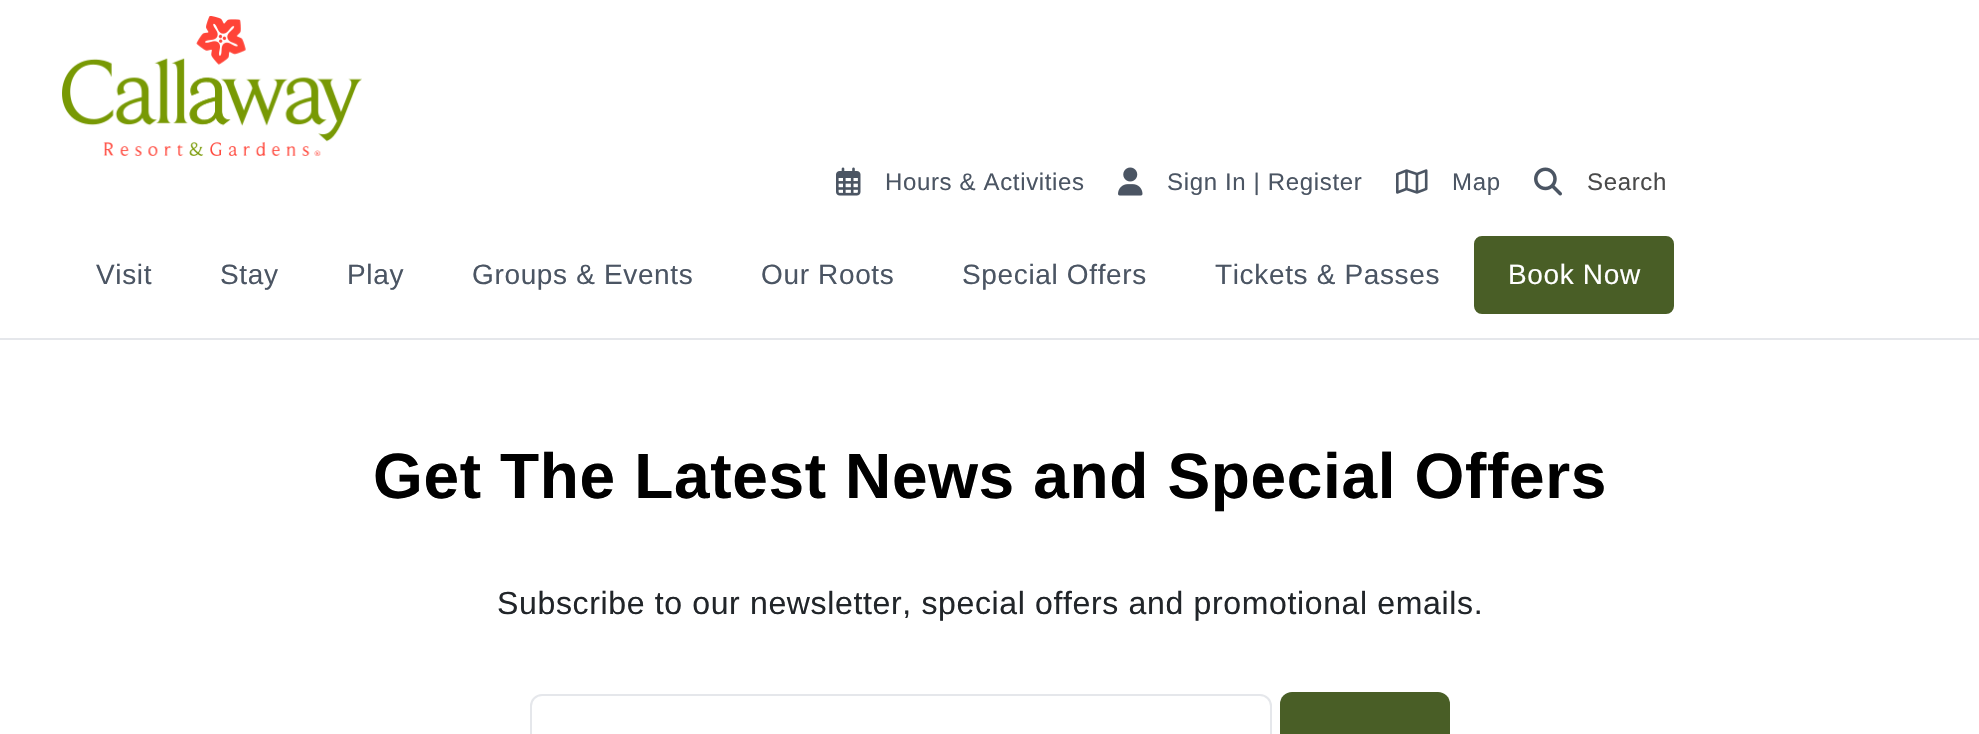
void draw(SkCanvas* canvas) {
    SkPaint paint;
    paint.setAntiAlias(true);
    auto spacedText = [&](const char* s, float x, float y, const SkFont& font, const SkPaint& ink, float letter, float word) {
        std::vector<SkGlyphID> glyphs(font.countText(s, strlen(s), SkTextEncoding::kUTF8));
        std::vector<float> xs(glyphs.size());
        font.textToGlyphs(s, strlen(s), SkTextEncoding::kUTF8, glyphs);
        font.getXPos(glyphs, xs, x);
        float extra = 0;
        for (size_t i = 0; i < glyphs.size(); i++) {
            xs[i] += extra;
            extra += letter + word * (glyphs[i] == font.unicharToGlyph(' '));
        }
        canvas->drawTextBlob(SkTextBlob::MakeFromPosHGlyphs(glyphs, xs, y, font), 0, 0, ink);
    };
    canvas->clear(0xFFFFFFFF);
    paint.setColor(0xFFE5E7EB);
    canvas->drawRect(SkRect::MakeXYWH(0, 338, 1979, 2), paint);
    canvas->drawImageRect(SkImages::DeferredFromEncodedData(SkData::MakeFromFileName("img1.png")), SkRect::MakeXYWH(62, 16, 300, 140), SkSamplingOptions());
    canvas->drawImageRect(SkImages::DeferredFromEncodedData(SkData::MakeFromFileName("img2.png")), SkRect::MakeXYWH(836, 167, 25, 29), SkSamplingOptions());
    SkFont font1(fontMgr->matchFamilyStyle("Liberation Sans", SkFontStyle::Normal()), 24);
    font1.setSubpixel(true);
    paint.setColor(0xFF4B5563);
    spacedText("Hours & Activities", 885, 190, font1, paint, 0.65f, 0);
    canvas->drawImageRect(SkImages::DeferredFromEncodedData(SkData::MakeFromFileName("img3.png")), SkRect::MakeXYWH(1118, 167, 25, 29), SkSamplingOptions());
    spacedText("Sign In | Register", 1167, 190, font1, paint, 0.65f, 0);
    canvas->drawImageRect(SkImages::DeferredFromEncodedData(SkData::MakeFromFileName("img4.png")), SkRect::MakeXYWH(1396, 169, 32, 25), SkSamplingOptions());
    spacedText("Map", 1452, 190, font1, paint, 0.65f, 0);
    canvas->drawImageRect(SkImages::DeferredFromEncodedData(SkData::MakeFromFileName("img5.png")), SkRect::MakeXYWH(1534, 167, 28, 29), SkSamplingOptions());
    paint.setColor(0xFF4A4A4A);
    spacedText("Search", 1587, 190, font1, paint, 0.65f, 0);
    SkFont font2(fontMgr->matchFamilyStyle("Liberation Sans", SkFontStyle::Normal()), 28);
    font2.setSubpixel(true);
    paint.setColor(0xFF4B5563);
    spacedText("Visit", 96, 284, font2, paint, 0.65f, 0);
    spacedText("Stay", 220, 284, font2, paint, 0.65f, 0);
    spacedText("Play", 347, 284, font2, paint, 0.65f, 0);
    spacedText("Groups & Events", 472, 284, font2, paint, 0.65f, 0);
    spacedText("Our Roots", 761, 284, font2, paint, 0.65f, 0);
    spacedText("Special Offers", 962, 284, font2, paint, 0.65f, 0);
    spacedText("Tickets & Passes", 1215, 284, font2, paint, 0.65f, 0);
    paint.setColor(0xFF495E26);
    canvas->drawRoundRect(SkRect::MakeXYWH(1475, 237, 198, 76), 7, 7, paint);
    paint.setStyle(SkPaint::kStroke_Style);
    paint.setStrokeWidth(2);
    canvas->drawRoundRect(SkRect::MakeXYWH(1475, 237, 198, 76), 7, 7, paint);
    paint.setStyle(SkPaint::kFill_Style);
    paint.setColor(0xFFFFFFFF);
    spacedText("Book Now", 1508, 284, font2, paint, 0.65f, 0);
    SkFont font3(fontMgr->matchFamilyStyle("Liberation Sans", SkFontStyle::Bold()), 64);
    font3.setSubpixel(true);
    paint.setColor(0xFF000000);
    spacedText("Get The Latest News and Special Offers", 373, 498, font3, paint, 0.65f, 0);
    SkFont font4(fontMgr->matchFamilyStyle("Liberation Sans", SkFontStyle::Normal()), 32);
    font4.setSubpixel(true);
    paint.setColor(0xFF212529);
    spacedText("Subscribe to our newsletter, special offers and promotional emails.", 497, 614, font4, paint, 0.65f, 0);
    paint.setStyle(SkPaint::kStroke_Style);
    paint.setColor(0xFFE5E7EB);
    canvas->drawRoundRect(SkRect::MakeXYWH(531, 695, 740, 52), 11, 11, paint);
    paint.setStyle(SkPaint::kFill_Style);
    paint.setColor(0xFF495E26);
    canvas->drawRoundRect(SkRect::MakeXYWH(1280, 692, 170, 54), 12, 12, paint);
}
